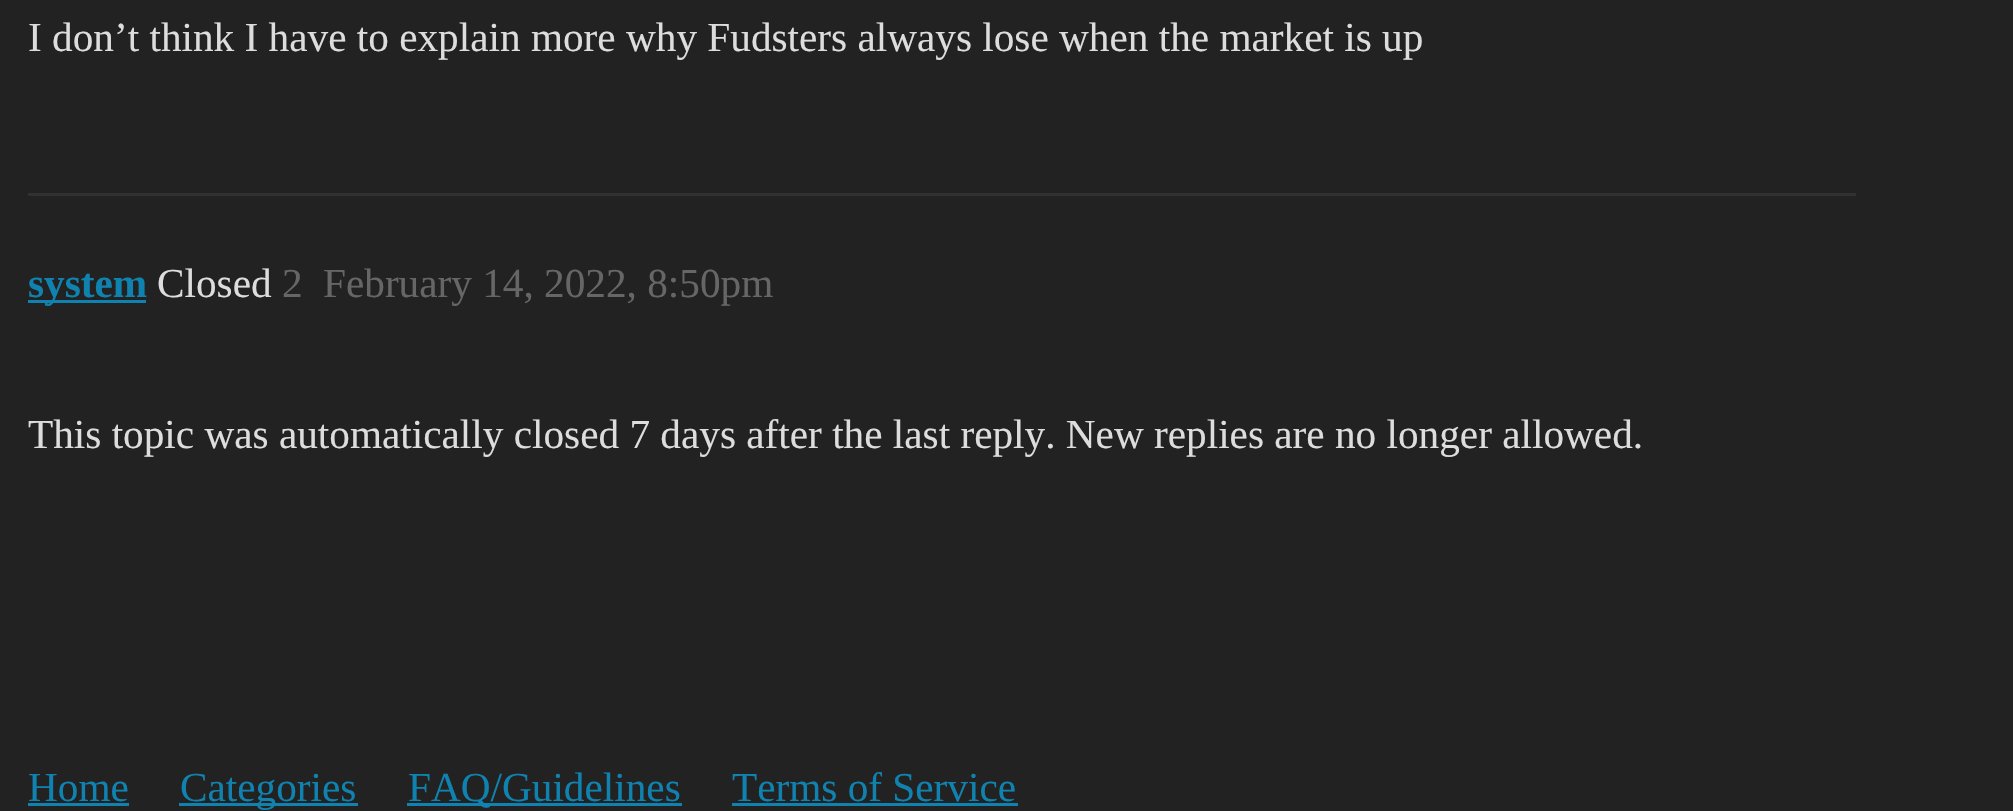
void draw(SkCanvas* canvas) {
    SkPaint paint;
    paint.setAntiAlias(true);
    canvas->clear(0xFF222222);
    SkFont font1(fontMgr->matchFamilyStyle("Liberation Serif", SkFontStyle::Normal()), 41.25f);
    font1.setSubpixel(true);
    paint.setColor(0xFFDDDDDD);
    canvas->drawString("I don’t think I have to explain more why Fudsters always lose when the market is up", 28, 51, font1, paint);
    paint.setColor(0xFF313131);
    canvas->drawRect(SkRect::MakeXYWH(28, 193, 1828, 3), paint);
    paint.setColor(0xFF0F82AF);
    canvas->drawRect(SkRect::MakeXYWH(28, 300, 118, 3), paint);
    SkFont font2(fontMgr->matchFamilyStyle("Liberation Serif", SkFontStyle::Bold()), 41.25f);
    font2.setSubpixel(true);
    canvas->drawString("system", 28, 297, font2, paint);
    paint.setColor(0xFFDDDDDD);
    canvas->drawString("Closed", 157, 297, font1, paint);
    paint.setColor(0xFF666666);
    canvas->drawString("2", 282, 297, font1, paint);
    canvas->drawString("February 14, 2022, 8:50pm", 323, 297, font1, paint);
    paint.setColor(0xFFDDDDDD);
    canvas->drawString("This topic was automatically closed 7 days after the last reply. New replies are no longer allowed.", 28, 448, font1, paint);
    paint.setColor(0xFF0F82AF);
    canvas->drawString("Home", 28, 801, font1, paint);
    canvas->drawRect(SkRect::MakeXYWH(28, 803, 101, 3), paint);
    canvas->drawRect(SkRect::MakeXYWH(179, 803, 179, 3), paint);
    canvas->drawString("Categories", 180, 801, font1, paint);
    canvas->drawRect(SkRect::MakeXYWH(407, 803, 275, 3), paint);
    canvas->drawString("FAQ/Guidelines", 408, 801, font1, paint);
    canvas->drawString("Terms of Service", 732, 801, font1, paint);
    canvas->drawRect(SkRect::MakeXYWH(732, 803, 286, 3), paint);
}
